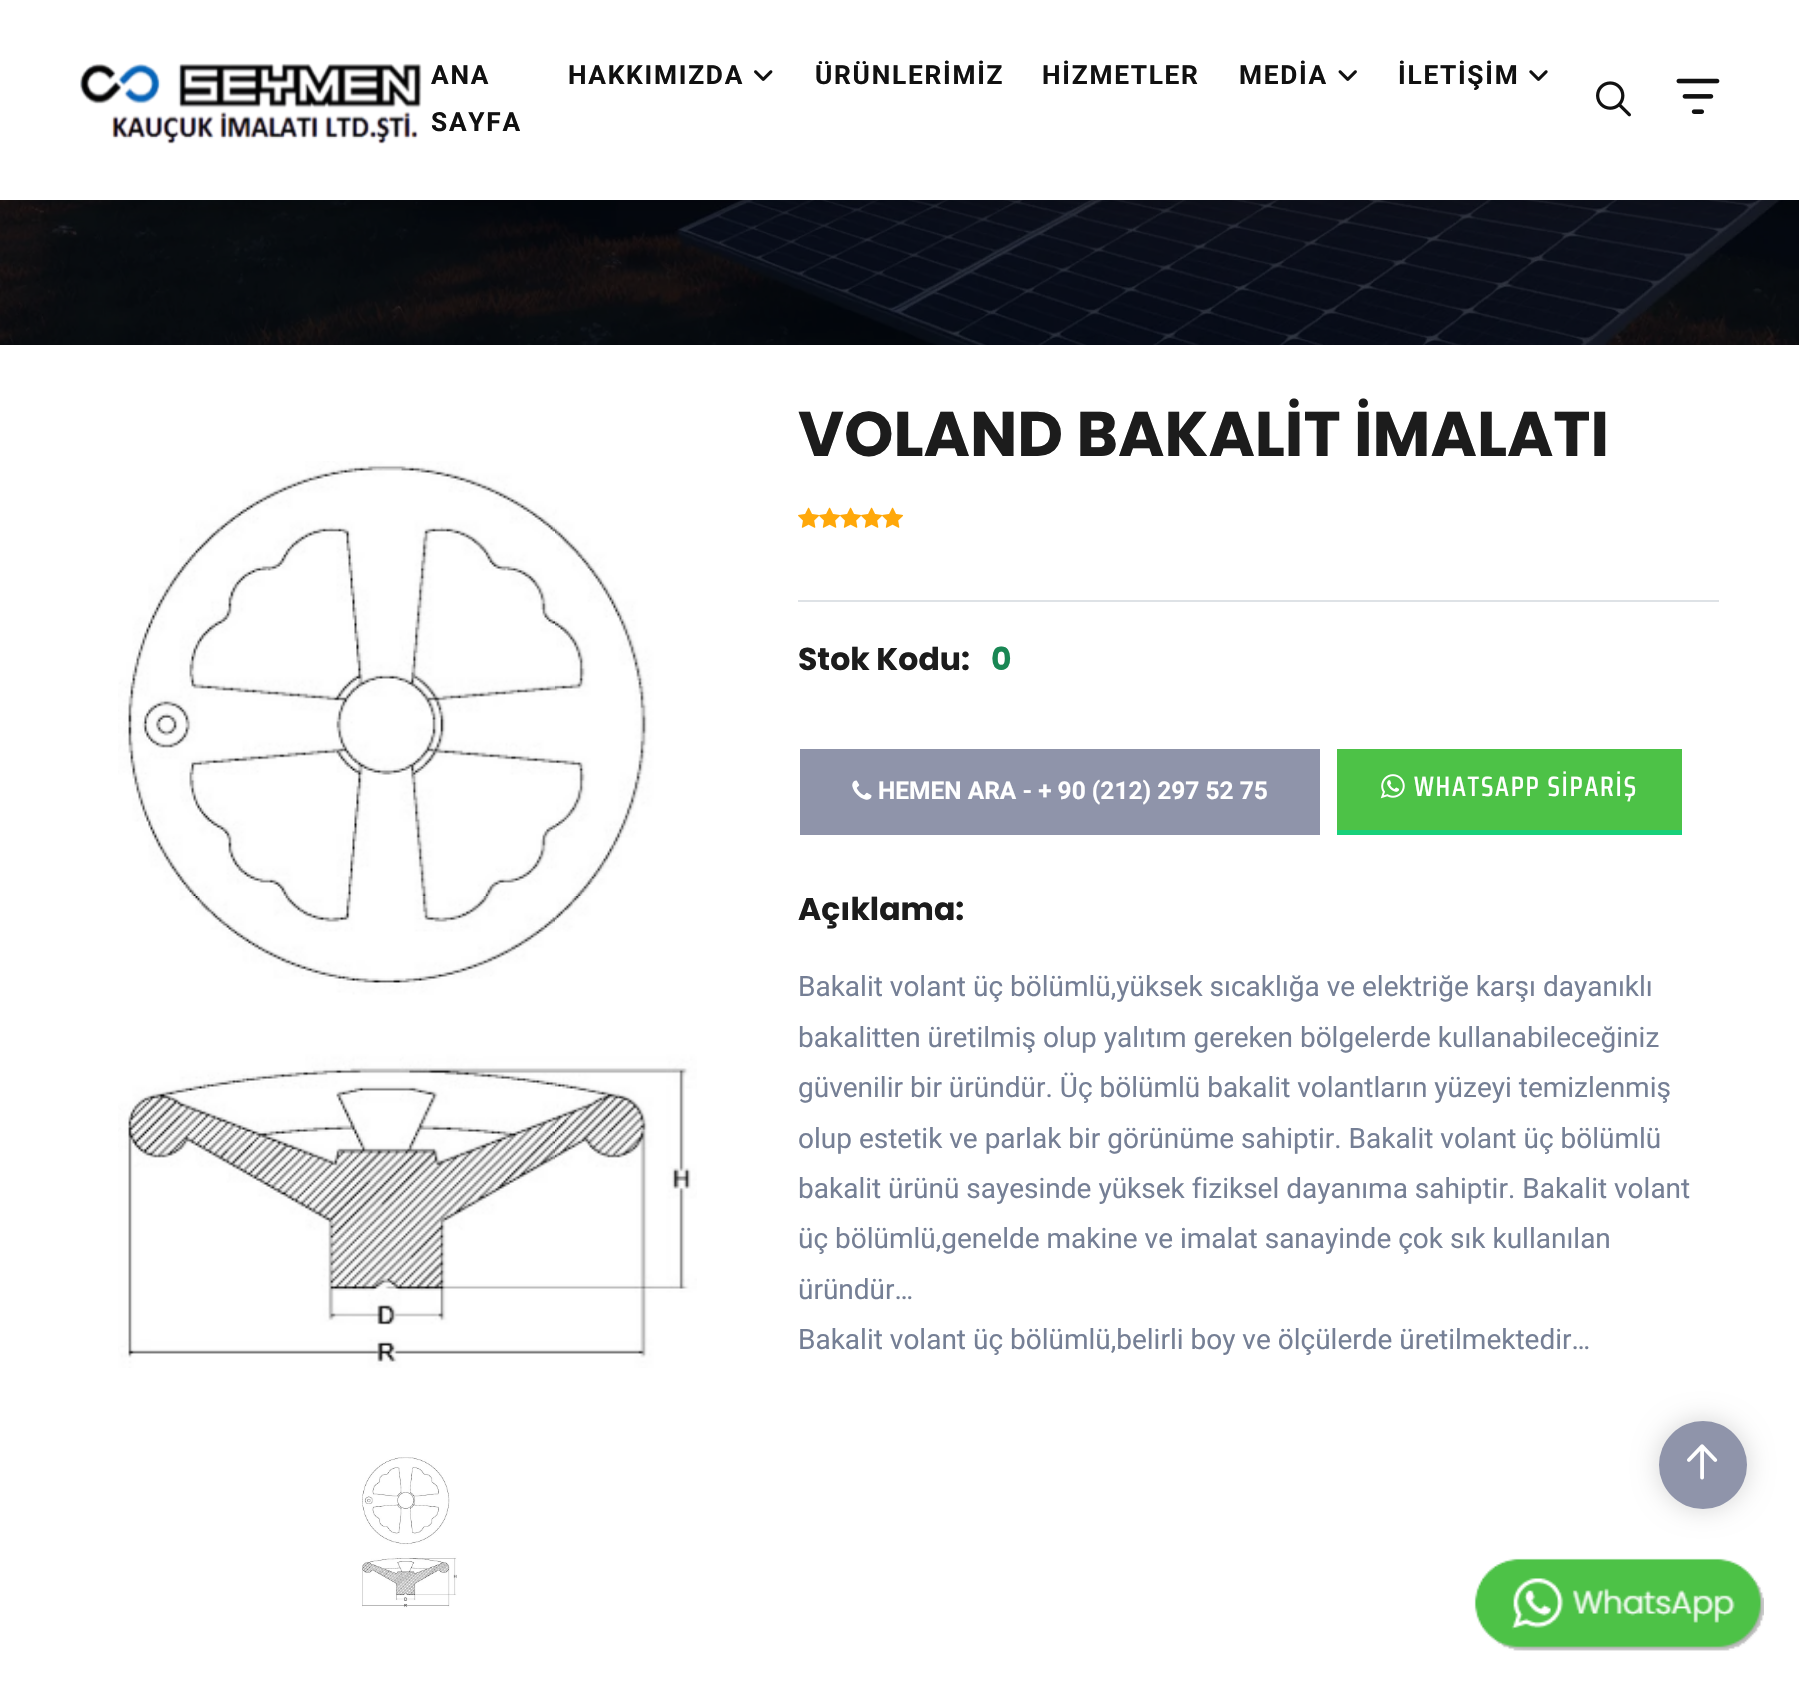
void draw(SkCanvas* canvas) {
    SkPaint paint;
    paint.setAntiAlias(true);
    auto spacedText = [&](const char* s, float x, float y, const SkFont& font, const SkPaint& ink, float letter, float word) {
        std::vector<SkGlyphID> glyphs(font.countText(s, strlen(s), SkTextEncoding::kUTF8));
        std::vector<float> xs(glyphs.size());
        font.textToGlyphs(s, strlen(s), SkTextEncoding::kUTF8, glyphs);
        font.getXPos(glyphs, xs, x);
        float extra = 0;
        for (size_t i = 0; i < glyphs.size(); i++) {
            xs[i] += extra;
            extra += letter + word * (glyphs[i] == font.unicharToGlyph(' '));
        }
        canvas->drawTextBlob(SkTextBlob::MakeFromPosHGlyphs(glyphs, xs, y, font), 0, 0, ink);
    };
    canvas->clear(0xFFFFFFFF);
    canvas->drawImageRect(SkImages::DeferredFromEncodedData(SkData::MakeFromFileName("img7.png")), SkRect::MakeXYWH(0, 200, 1799, 145), SkSamplingOptions());
    paint.setColor(0x2B000000);
    paint.setMaskFilter(SkMaskFilter::MakeBlur(kNormal_SkBlurStyle, 13));
    canvas->drawRect(SkRect::MakeXYWH(0, 0, 1799, 200), paint);
    paint.setMaskFilter(nullptr);
    paint.setColor(0xFFFFFFFF);
    canvas->drawRect(SkRect::MakeXYWH(0, 0, 1799, 200), paint);
    canvas->drawImageRect(SkImages::DeferredFromEncodedData(SkData::MakeFromFileName("img1.png")), SkRect::MakeXYWH(80, 63, 342, 81), SkSamplingOptions());
    SkFont font1(fontMgr->matchFamilyStyle("Roboto", SkFontStyle::Bold()), 26.25f);
    font1.setSubpixel(true);
    paint.setColor(0xFF111111);
    spacedText("ANA", 431, 84, font1, paint, 1.75f, 0);
    spacedText("SAYFA", 431, 131, font1, paint, 1.75f, 0);
    spacedText("HAKKIMIZDA", 568, 84, font1, paint, 1.75f, 0);
    canvas->drawImageRect(SkImages::DeferredFromEncodedData(SkData::MakeFromFileName("img2.png")), SkRect::MakeXYWH(754, 70, 19, 11), SkSamplingOptions());
    spacedText("ÜRÜNLERİMİZ", 815, 84, font1, paint, 1.75f, 0);
    spacedText("HİZMETLER", 1042, 84, font1, paint, 1.75f, 0);
    spacedText("MEDİA", 1239, 84, font1, paint, 1.75f, 0);
    canvas->drawImageRect(SkImages::DeferredFromEncodedData(SkData::MakeFromFileName("img3.png")), SkRect::MakeXYWH(1338, 70, 19, 11), SkSamplingOptions());
    spacedText("İLETİŞİM", 1398, 84, font1, paint, 1.75f, 0);
    canvas->drawImageRect(SkImages::DeferredFromEncodedData(SkData::MakeFromFileName("img4.png")), SkRect::MakeXYWH(1529, 70, 19, 11), SkSamplingOptions());
    canvas->drawImageRect(SkImages::DeferredFromEncodedData(SkData::MakeFromFileName("img5.png")), SkRect::MakeXYWH(1596, 81, 35, 36), SkSamplingOptions());
    canvas->drawImageRect(SkImages::DeferredFromEncodedData(SkData::MakeFromFileName("img6.png")), SkRect::MakeXYWH(1676, 78, 44, 36), SkSamplingOptions());
    canvas->drawImageRect(SkImages::DeferredFromEncodedData(SkData::MakeFromFileName("img8.png")), SkRect::MakeXYWH(118, 461, 579, 907), SkSamplingOptions());
    canvas->drawImageRect(SkImages::DeferredFromEncodedData(SkData::MakeFromFileName("img9.png")), SkRect::MakeXYWH(362, 1457, 95, 151), SkSamplingOptions());
    SkFont font2(fontMgr->matchFamilyStyle("Poppins", SkFontStyle::Bold()), 63);
    font2.setSubpixel(true);
    paint.setColor(0xFF1C1C1C);
    canvas->drawString("VOLAND BAKALİT İMALATI", 798, 456, font2, paint);
    canvas->drawImageRect(SkImages::DeferredFromEncodedData(SkData::MakeFromFileName("img10.png")), SkRect::MakeXYWH(798, 507, 22, 21), SkSamplingOptions());
    canvas->drawImageRect(SkImages::DeferredFromEncodedData(SkData::MakeFromFileName("img11.png")), SkRect::MakeXYWH(819, 507, 22, 21), SkSamplingOptions());
    canvas->drawImageRect(SkImages::DeferredFromEncodedData(SkData::MakeFromFileName("img11.png")), SkRect::MakeXYWH(840, 507, 22, 21), SkSamplingOptions());
    canvas->drawImageRect(SkImages::DeferredFromEncodedData(SkData::MakeFromFileName("img11.png")), SkRect::MakeXYWH(861, 507, 22, 21), SkSamplingOptions());
    canvas->drawImageRect(SkImages::DeferredFromEncodedData(SkData::MakeFromFileName("img11.png")), SkRect::MakeXYWH(882, 507, 22, 21), SkSamplingOptions());
    paint.setColor(0xFFDEE2E6);
    canvas->drawRect(SkRect::MakeXYWH(798, 600, 921, 2), paint);
    SkFont font3(fontMgr->matchFamilyStyle("Poppins", SkFontStyle::Bold()), 31.5f);
    font3.setSubpixel(true);
    paint.setColor(0xFF1C1C1C);
    canvas->drawString("Stok Kodu:", 798, 670, font3, paint);
    paint.setColor(0xFF198754);
    canvas->drawString("0", 991, 670, font3, paint);
    paint.setColor(0xFF8F94AA);
    canvas->drawRect(SkRect::MakeXYWH(800, 749, 520, 86), paint);
    canvas->drawImageRect(SkImages::DeferredFromEncodedData(SkData::MakeFromFileName("img12.png")), SkRect::MakeXYWH(852, 780, 20, 20), SkSamplingOptions());
    SkFont font4(fontMgr->matchFamilyStyle("Roboto", SkFontStyle::Bold()), 24.5f);
    font4.setSubpixel(true);
    paint.setColor(0xFFFFFFFF);
    canvas->drawString("HEMEN ARA - + 90 (212) 297 52 75", 878, 799, font4, paint);
    paint.setColor(0xFF4DC247);
    canvas->drawRect(SkRect::MakeXYWH(1337, 749, 345, 81), paint);
    paint.setColor(0xFF18D17A);
    canvas->drawRect(SkRect::MakeXYWH(1337, 830, 345, 5), paint);
    canvas->drawImageRect(SkImages::DeferredFromEncodedData(SkData::MakeFromFileName("img13.png")), SkRect::MakeXYWH(1380, 774, 25, 25), SkSamplingOptions());
    SkFont font5(fontMgr->matchFamilyStyle("Saira Condensed", SkFontStyle(500, SkFontStyle::kNormal_Width, SkFontStyle::kUpright_Slant)), 28);
    font5.setSubpixel(true);
    paint.setColor(0xFFFFFFFF);
    spacedText("WHATSAPP SİPARİŞ", 1414, 796, font5, paint, 1.75f, 0);
    paint.setColor(0xFF1C1C1C);
    canvas->drawString("Açıklama:", 798, 920, font3, paint);
    SkFont font6(fontMgr->matchFamilyStyle("Roboto", SkFontStyle::Normal()), 28);
    font6.setSubpixel(true);
    paint.setColor(0xFF757F95);
    canvas->drawString("Bakalit volant üç bölümlü,yüksek sıcaklığa ve elektriğe karşı dayanıklı", 798, 996, font6, paint);
    canvas->drawString("bakalitten üretilmiş olup yalıtım gereken bölgelerde kullanabileceğiniz", 798, 1047, font6, paint);
    canvas->drawString("güvenilir bir üründür. Üç bölümlü bakalit volantların yüzeyi temizlenmiş", 798, 1097, font6, paint);
    canvas->drawString("olup estetik ve parlak bir görünüme sahiptir. Bakalit volant üç bölümlü", 798, 1148, font6, paint);
    canvas->drawString("bakalit ürünü sayesinde yüksek fiziksel dayanıma sahiptir. Bakalit volant", 798, 1198, font6, paint);
    canvas->drawString("üç bölümlü,genelde makine ve imalat sanayinde çok sık kullanılan", 798, 1248, font6, paint);
    canvas->drawString("üründür…", 798, 1299, font6, paint);
    canvas->drawString("Bakalit volant üç bölümlü,belirli boy ve ölçülerde üretilmektedir…", 798, 1349, font6, paint);
    paint.setColor(0x2B000000);
    paint.setMaskFilter(SkMaskFilter::MakeBlur(kNormal_SkBlurStyle, 13));
    canvas->drawRoundRect(SkRect::MakeXYWH(1659, 1421, 88, 88), 44, 44, paint);
    paint.setMaskFilter(nullptr);
    paint.setColor(0xFF8F94AA);
    canvas->drawCircle(1703, 1465, 44, paint);
    canvas->drawImageRect(SkImages::DeferredFromEncodedData(SkData::MakeFromFileName("img14.png")), SkRect::MakeXYWH(1687, 1444, 31, 36), SkSamplingOptions());
    canvas->drawImageRect(SkImages::DeferredFromEncodedData(SkData::MakeFromFileName("img15.png")), SkRect::MakeXYWH(1474, 1558, 290, 93), SkSamplingOptions());
}
